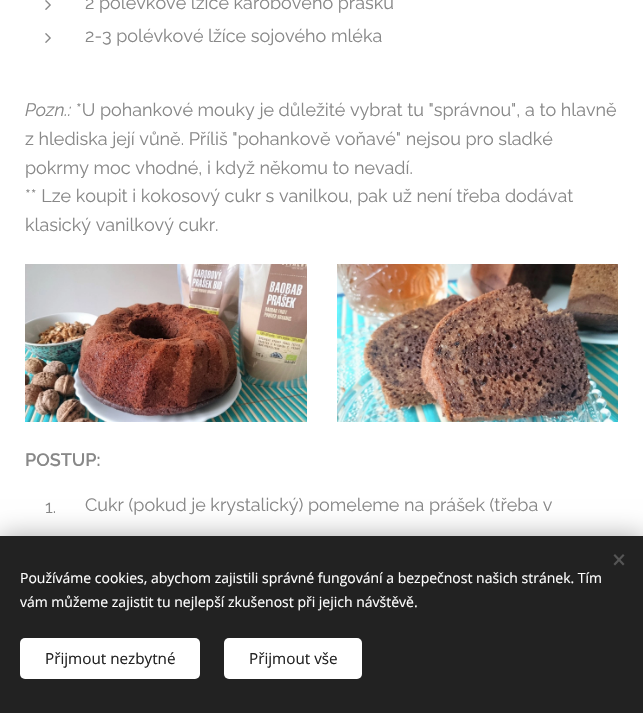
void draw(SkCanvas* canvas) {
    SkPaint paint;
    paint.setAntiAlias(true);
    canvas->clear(0xFFFFFFFF);
    canvas->drawImageRect(SkImages::DeferredFromEncodedData(SkData::MakeFromFileName("img1.png")), SkRect::MakeXYWH(45, 0, 6, 10), SkSamplingOptions());
    SkFont font1(fontMgr->matchFamilyStyle("Raleway", SkFontStyle::Normal()), 18);
    font1.setSubpixel(true);
    paint.setColor(0xFF888888);
    canvas->drawString("2 polévkové lžíce karobového prášku", 85, 9, font1, paint);
    canvas->drawImageRect(SkImages::DeferredFromEncodedData(SkData::MakeFromFileName("img1.png")), SkRect::MakeXYWH(45, 33, 6, 10), SkSamplingOptions());
    canvas->drawString("2-3 polévkové lžíce sojového mléka", 85, 42, font1, paint);
    SkFont font2(fontMgr->matchFamilyStyle("Raleway", SkFontStyle::Italic()), 18);
    font2.setSubpixel(true);
    canvas->drawString("Pozn.:", 25, 116, font2, paint);
    canvas->drawString("*U pohankové mouky je důležité vybrat tu \"správnou\", a to hlavně", 76, 116, font1, paint);
    canvas->drawString("z hlediska její vůně. Příliš \"pohankově voňavé\" nejsou pro sladké", 25, 145, font1, paint);
    canvas->drawString("pokrmy moc vhodné, i když někomu to nevadí.", 25, 174, font1, paint);
    canvas->drawString("** Lze koupit i kokosový cukr s vanilkou, pak už není třeba dodávat", 25, 202, font1, paint);
    canvas->drawString("klasický vanilkový cukr.", 25, 231, font1, paint);
    canvas->drawImageRect(SkImages::DeferredFromEncodedData(SkData::MakeFromFileName("img2.png")), SkRect::MakeXYWH(25, 264, 282, 158), SkSamplingOptions());
    canvas->drawImageRect(SkImages::DeferredFromEncodedData(SkData::MakeFromFileName("img3.png")), SkRect::MakeXYWH(337, 264, 281, 158), SkSamplingOptions());
    SkFont font3(fontMgr->matchFamilyStyle("Raleway", SkFontStyle(600, SkFontStyle::kNormal_Width, SkFontStyle::kUpright_Slant)), 18);
    font3.setSubpixel(true);
    canvas->drawString("POSTUP:", 25, 466, font3, paint);
    canvas->drawString("1.", 45, 513, font1, paint);
    canvas->drawString("Cukr (pokud je krystalický) pomeleme na prášek (třeba v", 85, 511, font1, paint);
    paint.setColor(0x54000000);
    paint.setMaskFilter(SkMaskFilter::MakeBlur(kNormal_SkBlurStyle, 12.5f));
    canvas->drawRect(SkRect::MakeXYWH(0, 536, 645, 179), paint);
    paint.setMaskFilter(nullptr);
    paint.setColor(0xFF222222);
    canvas->drawRect(SkRect::MakeXYWH(0, 536, 643, 177), paint);
    paint.setColor(0xFF555555);
    canvas->drawPath(SkPathBuilder().moveTo(613.5f, 564).lineTo(623, 554).lineTo(624.5f, 555.5f).lineTo(615, 565.5f).close().detach(), paint);
    canvas->drawPath(SkPathBuilder().moveTo(615, 554).lineTo(624.5f, 564).lineTo(623, 565.5f).lineTo(613.5f, 555.5f).close().detach(), paint);
    SkFont font4(fontMgr->matchFamilyStyle("Open Sans", SkFontStyle::Normal()), 14);
    font4.setSubpixel(true);
    paint.setColor(0xFFFFFFFF);
    canvas->drawString("Používáme cookies, abychom zajistili správné fungování a bezpečnost našich stránek. Tím", 20, 583, font4, paint);
    canvas->drawString("vám můžeme zajistit tu nejlepší zkušenost při jejich návštěvě.", 20, 607, font4, paint);
    canvas->drawRoundRect(SkRect::MakeXYWH(20, 638, 180, 41), 5, 5, paint);
    SkFont font5(fontMgr->matchFamilyStyle("Open Sans", SkFontStyle::Normal()), 15.25f);
    font5.setSubpixel(true);
    paint.setColor(0xFF222222);
    canvas->drawString("Přijmout nezbytné", 45, 664, font5, paint);
    paint.setColor(0xFFFFFFFF);
    canvas->drawRoundRect(SkRect::MakeXYWH(224, 638, 138, 41), 5, 5, paint);
    paint.setColor(0xFF222222);
    canvas->drawString("Přijmout vše", 249, 664, font5, paint);
}
